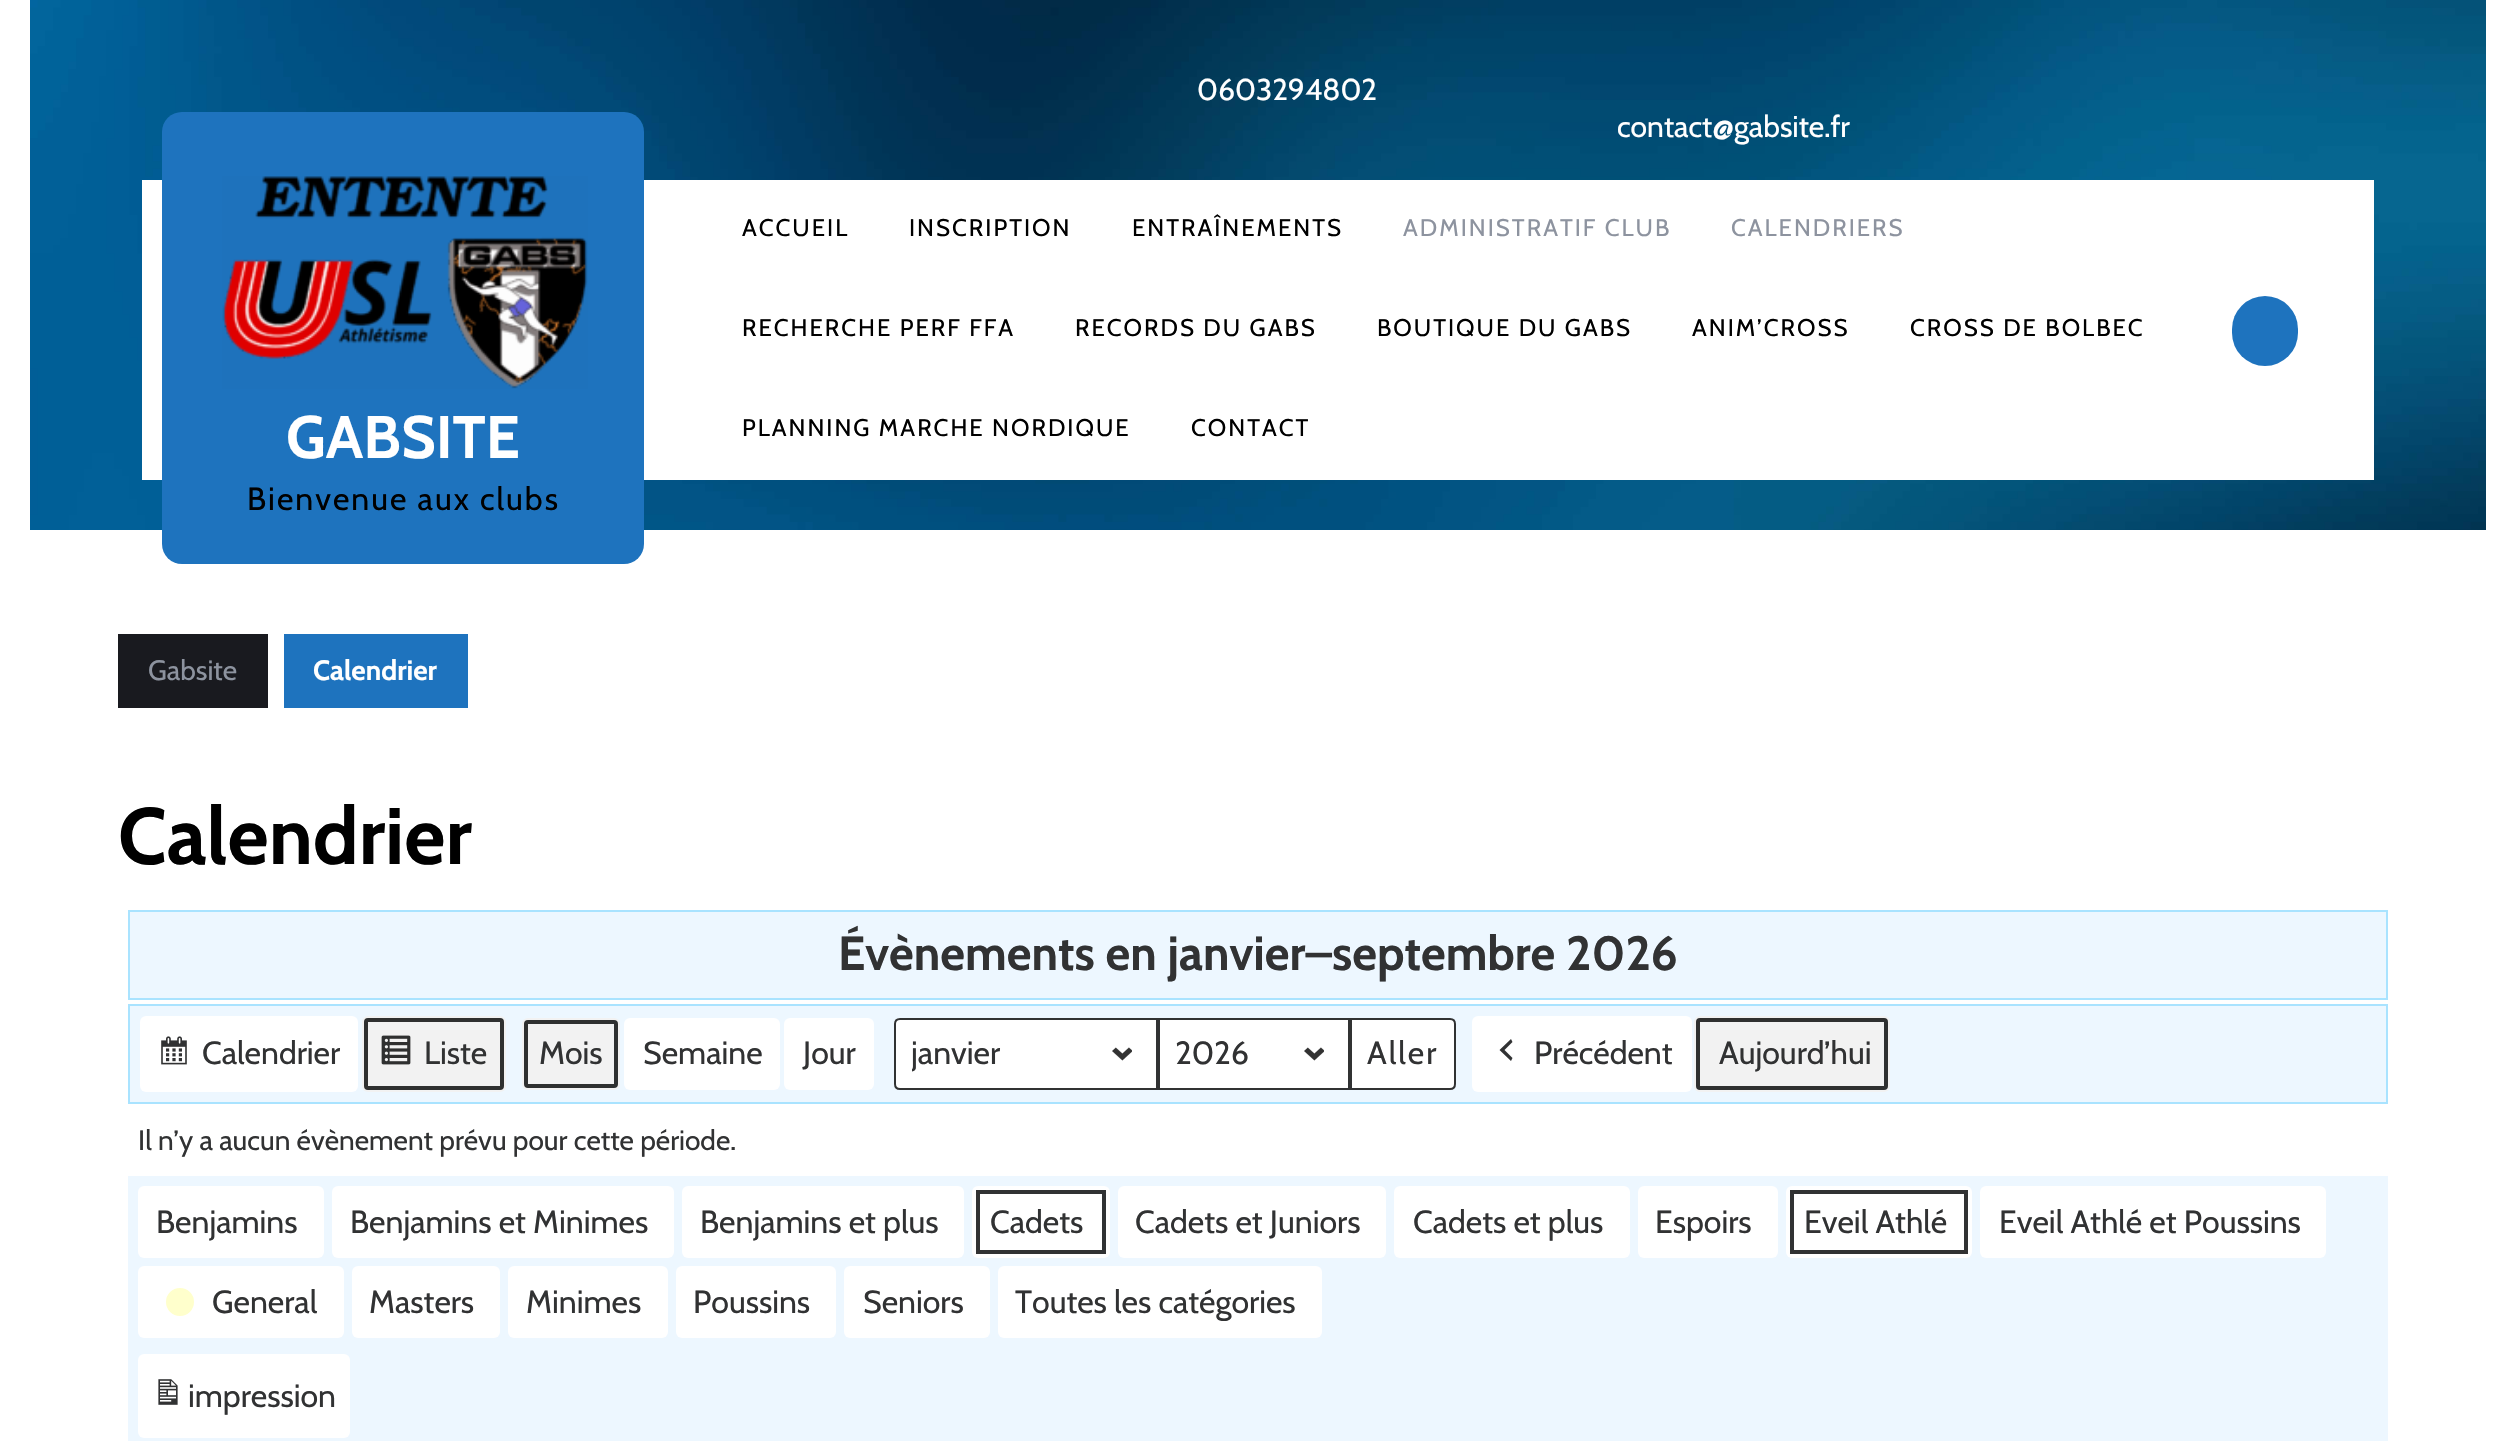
void draw(SkCanvas* canvas) {
    SkPaint paint;
    paint.setAntiAlias(true);
    auto spacedText = [&](const char* s, float x, float y, const SkFont& font, const SkPaint& ink, float letter, float word) {
        std::vector<SkGlyphID> glyphs(font.countText(s, strlen(s), SkTextEncoding::kUTF8));
        std::vector<float> xs(glyphs.size());
        font.textToGlyphs(s, strlen(s), SkTextEncoding::kUTF8, glyphs);
        font.getXPos(glyphs, xs, x);
        float extra = 0;
        for (size_t i = 0; i < glyphs.size(); i++) {
            xs[i] += extra;
            extra += letter + word * (glyphs[i] == font.unicharToGlyph(' '));
        }
        canvas->drawTextBlob(SkTextBlob::MakeFromPosHGlyphs(glyphs, xs, y, font), 0, 0, ink);
    };
    canvas->clear(0xFFFFFFFF);
    canvas->drawImageRect(SkImages::DeferredFromEncodedData(SkData::MakeFromFileName("img1.png")), SkRect::MakeXYWH(30, 0, 2456, 530), SkSamplingOptions());
    SkFont font1(fontMgr->matchFamilyStyle("Cabin", SkFontStyle::Normal()), 30);
    font1.setSubpixel(true);
    paint.setColor(0xFFFFFFFF);
    canvas->drawString("0603294802", 1197, 100, font1, paint);
    canvas->drawString("contact@gabsite.fr", 1617, 137, font1, paint);
    canvas->drawRect(SkRect::MakeXYWH(142, 180, 2232, 300), paint);
    SkFont font2(fontMgr->matchFamilyStyle("Cabin", SkFontStyle::Normal()), 24);
    font2.setSubpixel(true);
    paint.setColor(0xFF000000);
    spacedText("ACCUEIL", 742, 236, font2, paint, 2, 0);
    spacedText("INSCRIPTION", 909, 236, font2, paint, 2, 0);
    spacedText("ENTRAÎNEMENTS", 1132, 236, font2, paint, 2, 0);
    paint.setColor(0xFF8D939F);
    spacedText("ADMINISTRATIF CLUB", 1403, 236, font2, paint, 2, 0);
    spacedText("CALENDRIERS", 1731, 236, font2, paint, 2, 0);
    paint.setColor(0xFF000000);
    spacedText("RECHERCHE PERF FFA", 742, 336, font2, paint, 2, 0);
    spacedText("RECORDS DU GABS", 1075, 336, font2, paint, 2, 0);
    spacedText("BOUTIQUE DU GABS", 1377, 336, font2, paint, 2, 0);
    spacedText("ANIM’CROSS", 1692, 336, font2, paint, 2, 0);
    spacedText("CROSS DE BOLBEC", 1910, 336, font2, paint, 2, 0);
    spacedText("PLANNING MARCHE NORDIQUE", 742, 436, font2, paint, 2, 0);
    spacedText("CONTACT", 1191, 436, font2, paint, 2, 0);
    paint.setColor(0xFF1E73BE);
    canvas->drawRoundRect(SkRect::MakeXYWH(2232, 296, 66, 70), 33, 33, paint);
    canvas->drawRoundRect(SkRect::MakeXYWH(162, 112, 482, 452), 20, 20, paint);
    canvas->drawImageRect(SkImages::DeferredFromEncodedData(SkData::MakeFromFileName("img2.png")), SkRect::MakeXYWH(222, 176, 366, 213), SkSamplingOptions());
    SkFont font3(fontMgr->matchFamilyStyle("Cabin", SkFontStyle::Bold()), 60);
    font3.setSubpixel(true);
    paint.setColor(0xFFFFFFFF);
    canvas->drawString("GABSITE", 286, 458, font3, paint);
    SkFont font4(fontMgr->matchFamilyStyle("Cabin", SkFontStyle::Normal()), 32);
    font4.setSubpixel(true);
    paint.setColor(0xFF000000);
    spacedText("Bienvenue aux clubs", 247, 510, font4, paint, 2, 0);
    paint.setColor(0xFF191A1F);
    canvas->drawRect(SkRect::MakeXYWH(118, 634, 150, 74), paint);
    SkFont font5(fontMgr->matchFamilyStyle("Cabin", SkFontStyle::Normal()), 28);
    font5.setSubpixel(true);
    paint.setColor(0xFF8D939F);
    canvas->drawString("Gabsite", 148, 680, font5, paint);
    paint.setColor(0xFF1E73BE);
    canvas->drawRect(SkRect::MakeXYWH(284, 634, 184, 74), paint);
    SkFont font6(fontMgr->matchFamilyStyle("Cabin", SkFontStyle::Bold()), 28);
    font6.setSubpixel(true);
    paint.setColor(0xFFFFFFFF);
    canvas->drawString("Calendrier", 313, 680, font6, paint);
    SkFont font7(fontMgr->matchFamilyStyle("Cabin", SkFontStyle::Bold()), 80);
    font7.setSubpixel(true);
    paint.setColor(0xFF000000);
    canvas->drawString("Calendrier", 118, 864, font7, paint);
    paint.setColor(0xFFEDF7FF);
    canvas->drawRect(SkRect::MakeXYWH(129, 911, 2258, 88), paint);
    paint.setStyle(SkPaint::kStroke_Style);
    paint.setStrokeWidth(2);
    paint.setColor(0xFFA9E3FF);
    canvas->drawRect(SkRect::MakeXYWH(129, 911, 2258, 88), paint);
    SkFont font8(fontMgr->matchFamilyStyle("Cabin", SkFontStyle::Bold()), 48);
    font8.setSubpixel(true);
    paint.setStyle(SkPaint::kFill_Style);
    paint.setColor(0xFF313233);
    canvas->drawString("Évènements en janvier–septembre 2026", 838, 970, font8, paint);
    paint.setColor(0xFFEDF7FF);
    canvas->drawRect(SkRect::MakeXYWH(129, 1005, 2258, 98), paint);
    paint.setStyle(SkPaint::kStroke_Style);
    paint.setColor(0xFFA9E3FF);
    canvas->drawRect(SkRect::MakeXYWH(129, 1005, 2258, 98), paint);
    paint.setStyle(SkPaint::kFill_Style);
    paint.setColor(0xFFFFFFFF);
    canvas->drawRoundRect(SkRect::MakeXYWH(140, 1016, 218, 76), 6, 6, paint);
    canvas->drawImageRect(SkImages::DeferredFromEncodedData(SkData::MakeFromFileName("img3.png")), SkRect::MakeXYWH(161, 1036, 26, 29), SkSamplingOptions());
    paint.setColor(0xFF313233);
    canvas->drawString("Calendrier", 202, 1064, font4, paint);
    paint.setColor(0xFFF2F2F2);
    canvas->drawRoundRect(SkRect::MakeXYWH(362, 1016, 144, 76), 6, 6, paint);
    canvas->drawImageRect(SkImages::DeferredFromEncodedData(SkData::MakeFromFileName("img4.png")), SkRect::MakeXYWH(381, 1035, 30, 30), SkSamplingOptions());
    paint.setStyle(SkPaint::kStroke_Style);
    paint.setStrokeWidth(4);
    paint.setColor(0xFF2F3030);
    canvas->drawRoundRect(SkRect::MakeXYWH(366, 1020, 136, 68), 2, 2, paint);
    paint.setStyle(SkPaint::kFill_Style);
    paint.setColor(0xFF313233);
    canvas->drawString("Liste", 424, 1064, font4, paint);
    paint.setColor(0xFFF2F2F2);
    canvas->drawRoundRect(SkRect::MakeXYWH(522, 1018, 98, 72), 6, 6, paint);
    paint.setStyle(SkPaint::kStroke_Style);
    paint.setColor(0xFF2F3030);
    canvas->drawRoundRect(SkRect::MakeXYWH(526, 1022, 90, 64), 2, 2, paint);
    paint.setStyle(SkPaint::kFill_Style);
    paint.setColor(0xFF313233);
    canvas->drawString("Mois", 539, 1064, font4, paint);
    paint.setColor(0xFFFFFFFF);
    canvas->drawRoundRect(SkRect::MakeXYWH(624, 1018, 156, 72), 6, 6, paint);
    paint.setColor(0xFF313233);
    canvas->drawString("Semaine", 643, 1064, font4, paint);
    paint.setColor(0xFFFFFFFF);
    canvas->drawRoundRect(SkRect::MakeXYWH(784, 1018, 90, 72), 6, 6, paint);
    paint.setColor(0xFF313233);
    canvas->drawString("Jour", 803, 1064, font4, paint);
    paint.setColor(0xFFFFFFFF);
    canvas->drawPath(SkPathBuilder().moveTo(900, 1018).lineTo(1158, 1018).lineTo(1158, 1090).lineTo(900, 1090).cubicTo(896.5f, 1090, 894, 1087.5f, 894, 1084).lineTo(894, 1024).cubicTo(894, 1020.5f, 896.5f, 1018, 900, 1018).close().detach(), paint);
    canvas->drawImageRect(SkImages::DeferredFromEncodedData(SkData::MakeFromFileName("img5.png")), SkRect::MakeXYWH(1112, 1047, 20, 14), SkSamplingOptions());
    paint.setStyle(SkPaint::kStroke_Style);
    paint.setStrokeWidth(2);
    paint.setColor(0xFF313233);
    canvas->drawPath(SkPathBuilder().moveTo(900, 1019).lineTo(1157, 1019).lineTo(1157, 1089).lineTo(900, 1089).cubicTo(897, 1089, 895, 1087, 895, 1084).lineTo(895, 1024).cubicTo(895, 1021, 897, 1019, 900, 1019).close().detach(), paint);
    canvas->save();
    canvas->clipRect(SkRect::MakeXYWH(912, 1028, 148, 52));
    paint.setStyle(SkPaint::kFill_Style);
    canvas->drawString("janvier", 911, 1064, font4, paint);
    canvas->restore();
    paint.setColor(0xFFFFFFFF);
    canvas->drawRect(SkRect::MakeXYWH(1160, 1020, 188, 68), paint);
    canvas->drawImageRect(SkImages::DeferredFromEncodedData(SkData::MakeFromFileName("img5.png")), SkRect::MakeXYWH(1304, 1047, 20, 14), SkSamplingOptions());
    paint.setStyle(SkPaint::kStroke_Style);
    paint.setColor(0xFF313233);
    canvas->drawRect(SkRect::MakeXYWH(1159, 1019, 190, 70), paint);
    paint.setStyle(SkPaint::kFill_Style);
    canvas->drawString("2026", 1175, 1064, font4, paint);
    paint.setColor(0xFFFFFFFF);
    canvas->drawPath(SkPathBuilder().moveTo(1351, 1019).lineTo(1450, 1019).cubicTo(1453, 1019, 1455, 1021, 1455, 1024).lineTo(1455, 1084).cubicTo(1455, 1087, 1453, 1089, 1450, 1089).lineTo(1351, 1089).close().detach(), paint);
    paint.setStyle(SkPaint::kStroke_Style);
    paint.setColor(0xFF313233);
    canvas->drawPath(SkPathBuilder().moveTo(1351, 1019).lineTo(1450, 1019).cubicTo(1453, 1019, 1455, 1021, 1455, 1024).lineTo(1455, 1084).cubicTo(1455, 1087, 1453, 1089, 1450, 1089).lineTo(1351, 1089).close().detach(), paint);
    paint.setStyle(SkPaint::kFill_Style);
    spacedText("Aller", 1367, 1064, font4, paint, 2, 0);
    paint.setColor(0xFFFFFFFF);
    canvas->drawRoundRect(SkRect::MakeXYWH(1472, 1016, 220, 76), 6, 6, paint);
    paint.setColor(0xFF313233);
    canvas->drawPath(SkPathBuilder().moveTo(1512.5f, 1042).lineTo(1504.5f, 1050).lineTo(1512.5f, 1058).lineTo(1511, 1061).lineTo(1499.5f, 1050).lineTo(1511, 1039).close().detach(), paint);
    canvas->drawString("Précédent", 1534, 1064, font4, paint);
    paint.setColor(0xFFF2F2F2);
    canvas->drawRoundRect(SkRect::MakeXYWH(1694, 1016, 196, 76), 6, 6, paint);
    paint.setStyle(SkPaint::kStroke_Style);
    paint.setStrokeWidth(4);
    paint.setColor(0xFF2F3030);
    canvas->drawRoundRect(SkRect::MakeXYWH(1698, 1020, 188, 68), 2, 2, paint);
    paint.setStyle(SkPaint::kFill_Style);
    paint.setColor(0xFF313233);
    canvas->drawString("Aujourd’hui", 1719, 1064, font4, paint);
    canvas->drawString("Il n’y a aucun évènement prévu pour cette période.", 138, 1150, font5, paint);
    paint.setColor(0xFFEDF7FF);
    canvas->drawRect(SkRect::MakeXYWH(128, 1176, 2260, 265), paint);
    paint.setColor(0xFFFFFFFF);
    canvas->drawRoundRect(SkRect::MakeXYWH(138, 1186, 186, 72), 6, 6, paint);
    paint.setColor(0xFF313233);
    canvas->drawString("Benjamins", 156, 1233, font4, paint);
    paint.setColor(0xFFFFFFFF);
    canvas->drawRoundRect(SkRect::MakeXYWH(332, 1186, 342, 72), 6, 6, paint);
    paint.setColor(0xFF313233);
    canvas->drawString("Benjamins et Minimes", 350, 1233, font4, paint);
    paint.setColor(0xFFFFFFFF);
    canvas->drawRoundRect(SkRect::MakeXYWH(682, 1186, 282, 72), 6, 6, paint);
    paint.setColor(0xFF313233);
    canvas->drawString("Benjamins et plus", 700, 1233, font4, paint);
    paint.setColor(0xFFFFFFFF);
    canvas->drawRoundRect(SkRect::MakeXYWH(972, 1186, 138, 72), 6, 6, paint);
    paint.setStyle(SkPaint::kStroke_Style);
    paint.setColor(0xFF313233);
    canvas->drawRect(SkRect::MakeXYWH(978, 1192, 126, 60), paint);
    paint.setStyle(SkPaint::kFill_Style);
    canvas->drawString("Cadets", 990, 1233, font4, paint);
    paint.setColor(0xFFFFFFFF);
    canvas->drawRoundRect(SkRect::MakeXYWH(1118, 1186, 268, 72), 6, 6, paint);
    paint.setColor(0xFF313233);
    canvas->drawString("Cadets et Juniors", 1135, 1233, font4, paint);
    paint.setColor(0xFFFFFFFF);
    canvas->drawRoundRect(SkRect::MakeXYWH(1394, 1186, 236, 72), 6, 6, paint);
    paint.setColor(0xFF313233);
    canvas->drawString("Cadets et plus", 1413, 1233, font4, paint);
    paint.setColor(0xFFFFFFFF);
    canvas->drawRoundRect(SkRect::MakeXYWH(1638, 1186, 140, 72), 6, 6, paint);
    paint.setColor(0xFF313233);
    canvas->drawString("Espoirs", 1655, 1233, font4, paint);
    paint.setColor(0xFFFFFFFF);
    canvas->drawRoundRect(SkRect::MakeXYWH(1786, 1186, 186, 72), 6, 6, paint);
    paint.setStyle(SkPaint::kStroke_Style);
    paint.setColor(0xFF313233);
    canvas->drawRect(SkRect::MakeXYWH(1792, 1192, 174, 60), paint);
    paint.setStyle(SkPaint::kFill_Style);
    canvas->drawString("Eveil Athlé", 1804, 1233, font4, paint);
    paint.setColor(0xFFFFFFFF);
    canvas->drawRoundRect(SkRect::MakeXYWH(1980, 1186, 346, 72), 6, 6, paint);
    paint.setColor(0xFF313233);
    canvas->drawString("Eveil Athlé et Poussins", 1999, 1233, font4, paint);
    paint.setColor(0xFFFFFFFF);
    canvas->drawRoundRect(SkRect::MakeXYWH(138, 1266, 206, 72), 6, 6, paint);
    paint.setColor(0xFFFFFFCC);
    canvas->drawCircle(180, 1302, 15, paint);
    paint.setStyle(SkPaint::kStroke_Style);
    paint.setStrokeWidth(2);
    paint.setColor(0xFFFFFFFF);
    canvas->drawCircle(180, 1302, 15, paint);
    paint.setStyle(SkPaint::kFill_Style);
    paint.setColor(0xFF313233);
    canvas->drawString("General", 212, 1313, font4, paint);
    paint.setColor(0xFFFFFFFF);
    canvas->drawRoundRect(SkRect::MakeXYWH(352, 1266, 148, 72), 6, 6, paint);
    paint.setColor(0xFF313233);
    canvas->drawString("Masters", 369, 1313, font4, paint);
    paint.setColor(0xFFFFFFFF);
    canvas->drawRoundRect(SkRect::MakeXYWH(508, 1266, 160, 72), 6, 6, paint);
    paint.setColor(0xFF313233);
    canvas->drawString("Minimes", 526, 1313, font4, paint);
    paint.setColor(0xFFFFFFFF);
    canvas->drawRoundRect(SkRect::MakeXYWH(676, 1266, 160, 72), 6, 6, paint);
    paint.setColor(0xFF313233);
    canvas->drawString("Poussins", 693, 1313, font4, paint);
    paint.setColor(0xFFFFFFFF);
    canvas->drawRoundRect(SkRect::MakeXYWH(844, 1266, 146, 72), 6, 6, paint);
    paint.setColor(0xFF313233);
    canvas->drawString("Seniors", 863, 1313, font4, paint);
    paint.setColor(0xFFFFFFFF);
    canvas->drawRoundRect(SkRect::MakeXYWH(998, 1266, 324, 72), 6, 6, paint);
    paint.setColor(0xFF313233);
    canvas->drawString("Toutes les catégories", 1015, 1313, font4, paint);
    paint.setColor(0xFFFFFFFF);
    canvas->drawRoundRect(SkRect::MakeXYWH(138, 1354, 212, 84), 6, 6, paint);
    canvas->drawImageRect(SkImages::DeferredFromEncodedData(SkData::MakeFromFileName("img6.png")), SkRect::MakeXYWH(158, 1379, 20, 26), SkSamplingOptions());
    paint.setColor(0xFF313233);
    canvas->drawString("impression", 188, 1407, font4, paint);
}
